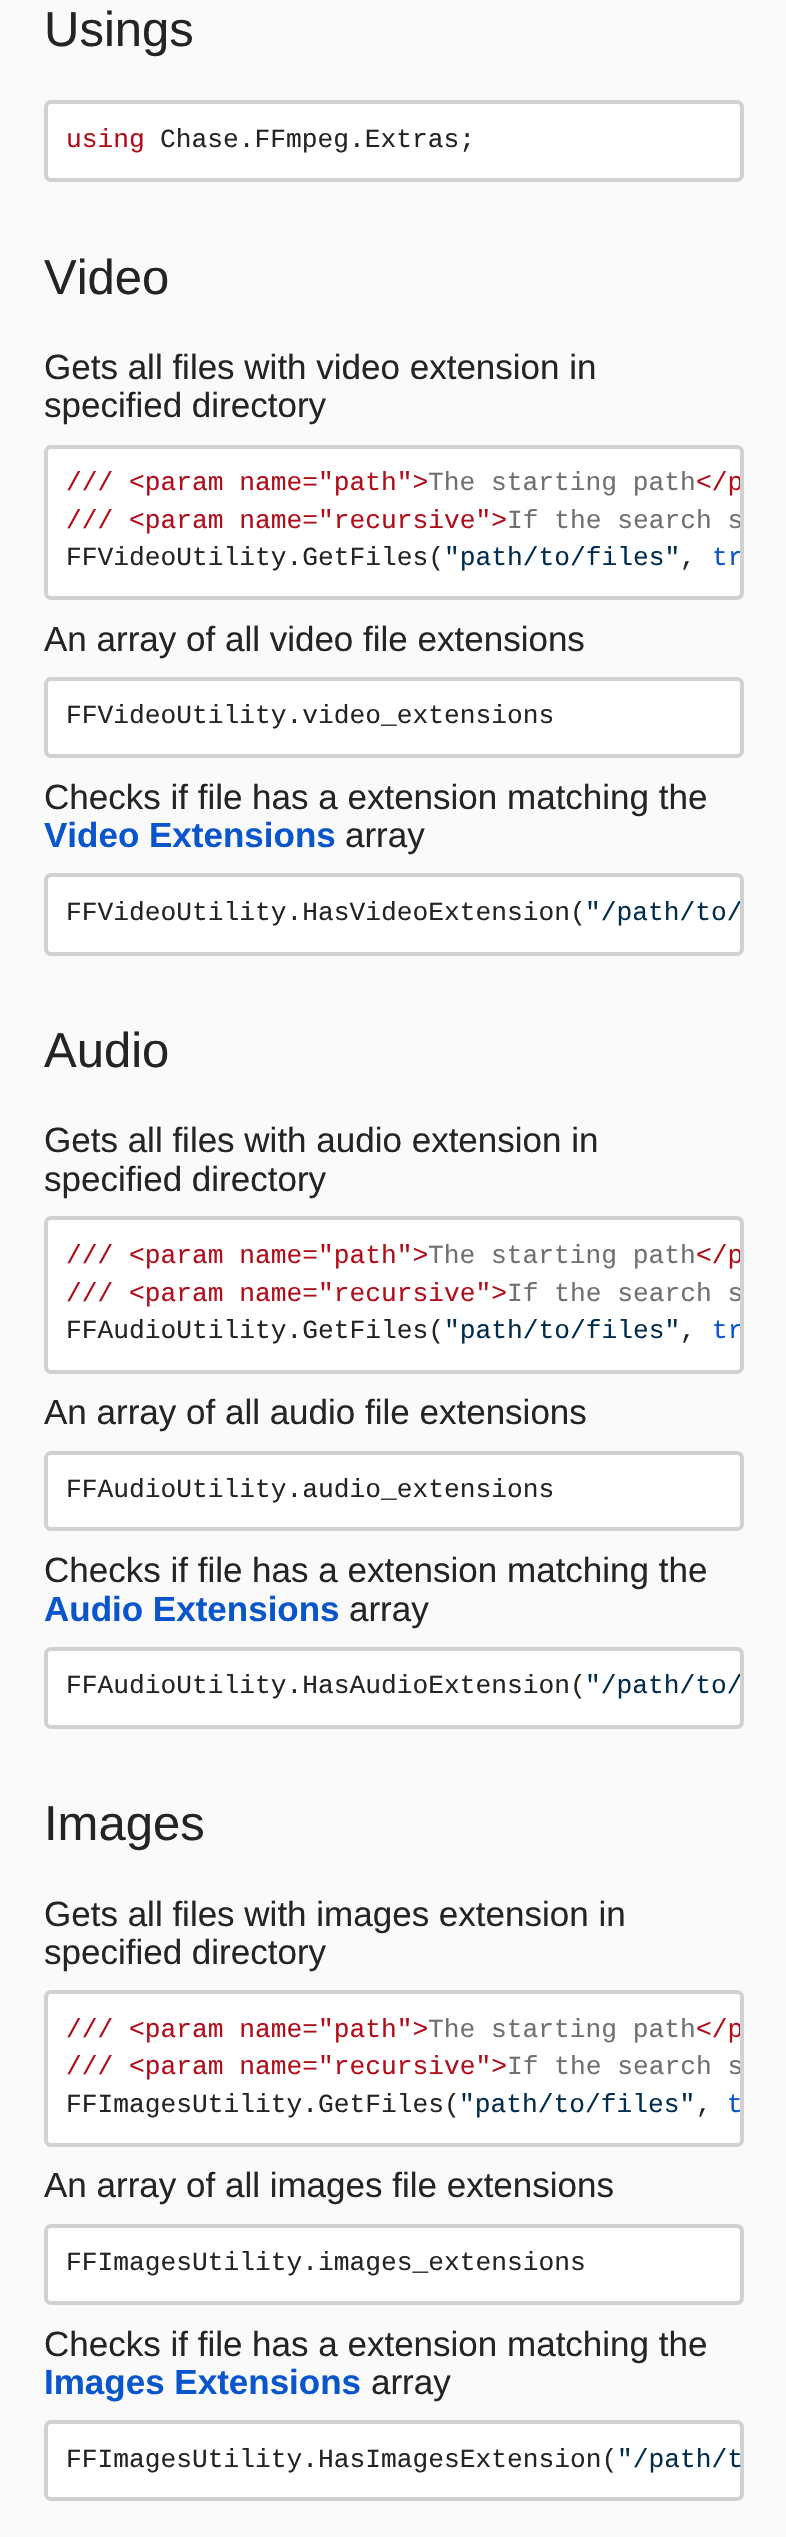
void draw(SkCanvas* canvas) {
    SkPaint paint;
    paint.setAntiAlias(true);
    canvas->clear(0xFFFAFAFA);
    SkFont font1(fontMgr->matchFamilyStyle("Liberation Sans", SkFontStyle::Normal()), 49);
    font1.setSubpixel(true);
    paint.setColor(0xFF242424);
    canvas->drawString("Usings", 44, 46, font1, paint);
    paint.setColor(0xFFFFFFFF);
    canvas->drawRoundRect(SkRect::MakeXYWH(46, 102, 696, 78), 5, 5, paint);
    paint.setStyle(SkPaint::kStroke_Style);
    paint.setStrokeWidth(4);
    paint.setColor(0xFFD1D1D1);
    canvas->drawRoundRect(SkRect::MakeXYWH(46, 102, 696, 78), 5, 5, paint);
    SkFont font2(fontMgr->matchFamilyStyle("Liberation Mono", SkFontStyle::Normal()), 26.25f);
    font2.setSubpixel(true);
    paint.setStyle(SkPaint::kFill_Style);
    paint.setColor(0xFFB10E1C);
    canvas->drawString("using", 66, 147, font2, paint);
    paint.setColor(0xFF242424);
    canvas->drawString("Chase.FFmpeg.Extras;", 160, 147, font2, paint);
    canvas->drawString("Video", 44, 294, font1, paint);
    SkFont font3(fontMgr->matchFamilyStyle("Liberation Sans", SkFontStyle::Normal()), 35);
    font3.setSubpixel(true);
    canvas->drawString("Gets all files with video extension in", 44, 379, font3, paint);
    canvas->drawString("specified directory", 44, 417, font3, paint);
    paint.setColor(0xFFFFFFFF);
    canvas->drawRoundRect(SkRect::MakeXYWH(46, 447, 696, 151), 5, 5, paint);
    paint.setStyle(SkPaint::kStroke_Style);
    paint.setColor(0xFFD1D1D1);
    canvas->drawRoundRect(SkRect::MakeXYWH(46, 447, 696, 151), 5, 5, paint);
    paint.setStyle(SkPaint::kFill_Style);
    paint.setColor(0xFFB10E1C);
    canvas->drawString("/// <param name=\"path\">", 66, 490, font2, paint);
    paint.setColor(0xFF707070);
    canvas->drawString("The starting path", 428, 490, font2, paint);
    canvas->save();
    canvas->clipPath(SkPathBuilder().moveTo(51, 448).lineTo(736, 448).cubicTo(738, 448, 740, 450, 740, 452).lineTo(740, 593).cubicTo(740, 595, 738, 597, 736, 597).lineTo(51, 597).cubicTo(49, 597, 47, 595, 47, 593).lineTo(47, 452).cubicTo(47, 450, 49, 448, 51, 448).close().detach(), true);
    paint.setColor(0xFFB10E1C);
    canvas->drawString("</p", 696, 490, font2, paint);
    canvas->restore();
    canvas->drawString("/// <param name=\"recursive\">", 66, 528, font2, paint);
    canvas->save();
    canvas->clipPath(SkPathBuilder().moveTo(51, 448).lineTo(736, 448).cubicTo(738, 448, 740, 450, 740, 452).lineTo(740, 593).cubicTo(740, 595, 738, 597, 736, 597).lineTo(51, 597).cubicTo(49, 597, 47, 595, 47, 593).lineTo(47, 452).cubicTo(47, 450, 49, 448, 51, 448).close().detach(), true);
    paint.setColor(0xFF707070);
    canvas->drawString("If the search s", 507, 528, font2, paint);
    canvas->restore();
    paint.setColor(0xFF242424);
    canvas->drawString("FFVideoUtility.GetFiles(", 66, 565, font2, paint);
    paint.setColor(0xFF002C4E);
    canvas->drawString("\"path/to/files\"", 444, 565, font2, paint);
    paint.setColor(0xFF242424);
    canvas->drawString(",", 680, 565, font2, paint);
    canvas->save();
    canvas->clipPath(SkPathBuilder().moveTo(51, 448).lineTo(736, 448).cubicTo(738, 448, 740, 450, 740, 452).lineTo(740, 593).cubicTo(740, 595, 738, 597, 736, 597).lineTo(51, 597).cubicTo(49, 597, 47, 595, 47, 593).lineTo(47, 452).cubicTo(47, 450, 49, 448, 51, 448).close().detach(), true);
    paint.setColor(0xFF0956CC);
    canvas->drawString("tr", 712, 565, font2, paint);
    canvas->restore();
    paint.setColor(0xFF242424);
    canvas->drawString("An array of all video file extensions", 44, 651, font3, paint);
    paint.setColor(0xFFFFFFFF);
    canvas->drawRoundRect(SkRect::MakeXYWH(46, 679, 696, 77), 5, 5, paint);
    paint.setStyle(SkPaint::kStroke_Style);
    paint.setColor(0xFFD1D1D1);
    canvas->drawRoundRect(SkRect::MakeXYWH(46, 679, 696, 77), 5, 5, paint);
    paint.setStyle(SkPaint::kFill_Style);
    paint.setColor(0xFF242424);
    canvas->drawString("FFVideoUtility.video_extensions", 66, 723, font2, paint);
    canvas->drawString("Checks if file has a extension matching the", 44, 809, font3, paint);
    SkFont font4(fontMgr->matchFamilyStyle("Liberation Sans", SkFontStyle::Bold()), 35);
    font4.setSubpixel(true);
    paint.setColor(0xFF0956CC);
    canvas->drawString("Video Extensions", 44, 847, font4, paint);
    paint.setColor(0xFF242424);
    canvas->drawString("array", 345, 847, font3, paint);
    paint.setColor(0xFFFFFFFF);
    canvas->drawRoundRect(SkRect::MakeXYWH(46, 875, 696, 79), 5, 5, paint);
    paint.setStyle(SkPaint::kStroke_Style);
    paint.setColor(0xFFD1D1D1);
    canvas->drawRoundRect(SkRect::MakeXYWH(46, 875, 696, 79), 5, 5, paint);
    paint.setStyle(SkPaint::kFill_Style);
    paint.setColor(0xFF242424);
    canvas->drawString("FFVideoUtility.HasVideoExtension(", 66, 920, font2, paint);
    canvas->save();
    canvas->clipPath(SkPathBuilder().moveTo(51, 877).lineTo(736, 877).cubicTo(738, 877, 740, 879, 740, 881).lineTo(740, 948).cubicTo(740, 950, 738, 952, 736, 952).lineTo(51, 952).cubicTo(49, 952, 47, 950, 47, 948).lineTo(47, 881).cubicTo(47, 879, 49, 877, 51, 877).close().detach(), true);
    paint.setColor(0xFF002C4E);
    canvas->drawString("\"/path/to/", 585, 920, font2, paint);
    canvas->restore();
    paint.setColor(0xFF242424);
    canvas->drawString("Audio", 44, 1067, font1, paint);
    canvas->drawString("Gets all files with audio extension in", 44, 1152, font3, paint);
    canvas->drawString("specified directory", 44, 1191, font3, paint);
    paint.setColor(0xFFFFFFFF);
    canvas->drawRoundRect(SkRect::MakeXYWH(46, 1218, 696, 154), 5, 5, paint);
    paint.setStyle(SkPaint::kStroke_Style);
    paint.setColor(0xFFD1D1D1);
    canvas->drawRoundRect(SkRect::MakeXYWH(46, 1218, 696, 154), 5, 5, paint);
    paint.setStyle(SkPaint::kFill_Style);
    paint.setColor(0xFFB10E1C);
    canvas->drawString("/// <param name=\"path\">", 66, 1263, font2, paint);
    paint.setColor(0xFF707070);
    canvas->drawString("The starting path", 428, 1263, font2, paint);
    canvas->save();
    canvas->clipPath(SkPathBuilder().moveTo(51, 1220).lineTo(736, 1220).cubicTo(738, 1220, 740, 1222, 740, 1224).lineTo(740, 1366).cubicTo(740, 1368, 738, 1370, 736, 1370).lineTo(51, 1370).cubicTo(49, 1370, 47, 1368, 47, 1366).lineTo(47, 1224).cubicTo(47, 1222, 49, 1220, 51, 1220).close().detach(), true);
    paint.setColor(0xFFB10E1C);
    canvas->drawString("</p", 696, 1263, font2, paint);
    canvas->restore();
    canvas->drawString("/// <param name=\"recursive\">", 66, 1301, font2, paint);
    canvas->save();
    canvas->clipPath(SkPathBuilder().moveTo(51, 1220).lineTo(736, 1220).cubicTo(738, 1220, 740, 1222, 740, 1224).lineTo(740, 1366).cubicTo(740, 1368, 738, 1370, 736, 1370).lineTo(51, 1370).cubicTo(49, 1370, 47, 1368, 47, 1366).lineTo(47, 1224).cubicTo(47, 1222, 49, 1220, 51, 1220).close().detach(), true);
    paint.setColor(0xFF707070);
    canvas->drawString("If the search s", 507, 1301, font2, paint);
    canvas->restore();
    paint.setColor(0xFF242424);
    canvas->drawString("FFAudioUtility.GetFiles(", 66, 1338, font2, paint);
    paint.setColor(0xFF002C4E);
    canvas->drawString("\"path/to/files\"", 444, 1338, font2, paint);
    paint.setColor(0xFF242424);
    canvas->drawString(",", 680, 1338, font2, paint);
    canvas->save();
    canvas->clipPath(SkPathBuilder().moveTo(51, 1220).lineTo(736, 1220).cubicTo(738, 1220, 740, 1222, 740, 1224).lineTo(740, 1366).cubicTo(740, 1368, 738, 1370, 736, 1370).lineTo(51, 1370).cubicTo(49, 1370, 47, 1368, 47, 1366).lineTo(47, 1224).cubicTo(47, 1222, 49, 1220, 51, 1220).close().detach(), true);
    paint.setColor(0xFF0956CC);
    canvas->drawString("tr", 712, 1338, font2, paint);
    canvas->restore();
    paint.setColor(0xFF242424);
    canvas->drawString("An array of all audio file extensions", 44, 1424, font3, paint);
    paint.setColor(0xFFFFFFFF);
    canvas->drawRoundRect(SkRect::MakeXYWH(46, 1453, 696, 76), 5, 5, paint);
    paint.setStyle(SkPaint::kStroke_Style);
    paint.setColor(0xFFD1D1D1);
    canvas->drawRoundRect(SkRect::MakeXYWH(46, 1453, 696, 76), 5, 5, paint);
    paint.setStyle(SkPaint::kFill_Style);
    paint.setColor(0xFF242424);
    canvas->drawString("FFAudioUtility.audio_extensions", 66, 1497, font2, paint);
    canvas->drawString("Checks if file has a extension matching the", 44, 1582, font3, paint);
    paint.setColor(0xFF0956CC);
    canvas->drawString("Audio Extensions", 44, 1621, font4, paint);
    paint.setColor(0xFF242424);
    canvas->drawString("array", 349, 1621, font3, paint);
    paint.setColor(0xFFFFFFFF);
    canvas->drawRoundRect(SkRect::MakeXYWH(46, 1649, 696, 78), 5, 5, paint);
    paint.setStyle(SkPaint::kStroke_Style);
    paint.setColor(0xFFD1D1D1);
    canvas->drawRoundRect(SkRect::MakeXYWH(46, 1649, 696, 78), 5, 5, paint);
    paint.setStyle(SkPaint::kFill_Style);
    paint.setColor(0xFF242424);
    canvas->drawString("FFAudioUtility.HasAudioExtension(", 66, 1693, font2, paint);
    canvas->save();
    canvas->clipPath(SkPathBuilder().moveTo(51, 1650).lineTo(736, 1650).cubicTo(738, 1650, 740, 1652, 740, 1654).lineTo(740, 1722).cubicTo(740, 1724, 738, 1726, 736, 1726).lineTo(51, 1726).cubicTo(49, 1726, 47, 1724, 47, 1722).lineTo(47, 1654).cubicTo(47, 1652, 49, 1650, 51, 1650).close().detach(), true);
    paint.setColor(0xFF002C4E);
    canvas->drawString("\"/path/to/", 585, 1693, font2, paint);
    canvas->restore();
    paint.setColor(0xFF242424);
    canvas->drawString("Images", 44, 1840, font1, paint);
    canvas->drawString("Gets all files with images extension in", 44, 1926, font3, paint);
    canvas->drawString("specified directory", 44, 1964, font3, paint);
    paint.setColor(0xFFFFFFFF);
    canvas->drawRoundRect(SkRect::MakeXYWH(46, 1992, 696, 153), 5, 5, paint);
    paint.setStyle(SkPaint::kStroke_Style);
    paint.setColor(0xFFD1D1D1);
    canvas->drawRoundRect(SkRect::MakeXYWH(46, 1992, 696, 153), 5, 5, paint);
    paint.setStyle(SkPaint::kFill_Style);
    paint.setColor(0xFFB10E1C);
    canvas->drawString("/// <param name=\"path\">", 66, 2037, font2, paint);
    paint.setColor(0xFF707070);
    canvas->drawString("The starting path", 428, 2037, font2, paint);
    canvas->save();
    canvas->clipPath(SkPathBuilder().moveTo(51, 1993).lineTo(736, 1993).cubicTo(738, 1993, 740, 1995, 740, 1997).lineTo(740, 2140).cubicTo(740, 2142, 738, 2144, 736, 2144).lineTo(51, 2144).cubicTo(49, 2144, 47, 2142, 47, 2140).lineTo(47, 1997).cubicTo(47, 1995, 49, 1993, 51, 1993).close().detach(), true);
    paint.setColor(0xFFB10E1C);
    canvas->drawString("</p", 696, 2037, font2, paint);
    canvas->restore();
    canvas->drawString("/// <param name=\"recursive\">", 66, 2074, font2, paint);
    canvas->save();
    canvas->clipPath(SkPathBuilder().moveTo(51, 1993).lineTo(736, 1993).cubicTo(738, 1993, 740, 1995, 740, 1997).lineTo(740, 2140).cubicTo(740, 2142, 738, 2144, 736, 2144).lineTo(51, 2144).cubicTo(49, 2144, 47, 2142, 47, 2140).lineTo(47, 1997).cubicTo(47, 1995, 49, 1993, 51, 1993).close().detach(), true);
    paint.setColor(0xFF707070);
    canvas->drawString("If the search s", 507, 2074, font2, paint);
    canvas->restore();
    paint.setColor(0xFF242424);
    canvas->drawString("FFImagesUtility.GetFiles(", 66, 2112, font2, paint);
    paint.setColor(0xFF002C4E);
    canvas->drawString("\"path/to/files\"", 459, 2112, font2, paint);
    paint.setColor(0xFF242424);
    canvas->drawString(",", 696, 2112, font2, paint);
    paint.setColor(0xFF0956CC);
    canvas->drawString("t", 727, 2112, font2, paint);
    paint.setColor(0xFF242424);
    canvas->drawString("An array of all images file extensions", 44, 2197, font3, paint);
    paint.setColor(0xFFFFFFFF);
    canvas->drawRoundRect(SkRect::MakeXYWH(46, 2226, 696, 77), 5, 5, paint);
    paint.setStyle(SkPaint::kStroke_Style);
    paint.setColor(0xFFD1D1D1);
    canvas->drawRoundRect(SkRect::MakeXYWH(46, 2226, 696, 77), 5, 5, paint);
    paint.setStyle(SkPaint::kFill_Style);
    paint.setColor(0xFF242424);
    canvas->drawString("FFImagesUtility.images_extensions", 66, 2270, font2, paint);
    canvas->drawString("Checks if file has a extension matching the", 44, 2356, font3, paint);
    paint.setColor(0xFF0956CC);
    canvas->drawString("Images Extensions", 44, 2394, font4, paint);
    paint.setColor(0xFF242424);
    canvas->drawString("array", 371, 2394, font3, paint);
    paint.setColor(0xFFFFFFFF);
    canvas->drawRoundRect(SkRect::MakeXYWH(46, 2422, 696, 77), 5, 5, paint);
    paint.setStyle(SkPaint::kStroke_Style);
    paint.setColor(0xFFD1D1D1);
    canvas->drawRoundRect(SkRect::MakeXYWH(46, 2422, 696, 77), 5, 5, paint);
    paint.setStyle(SkPaint::kFill_Style);
    paint.setColor(0xFF242424);
    canvas->drawString("FFImagesUtility.HasImagesExtension(", 66, 2467, font2, paint);
    paint.setColor(0xFF002C4E);
    canvas->drawString("\"/path/t", 617, 2467, font2, paint);
}
